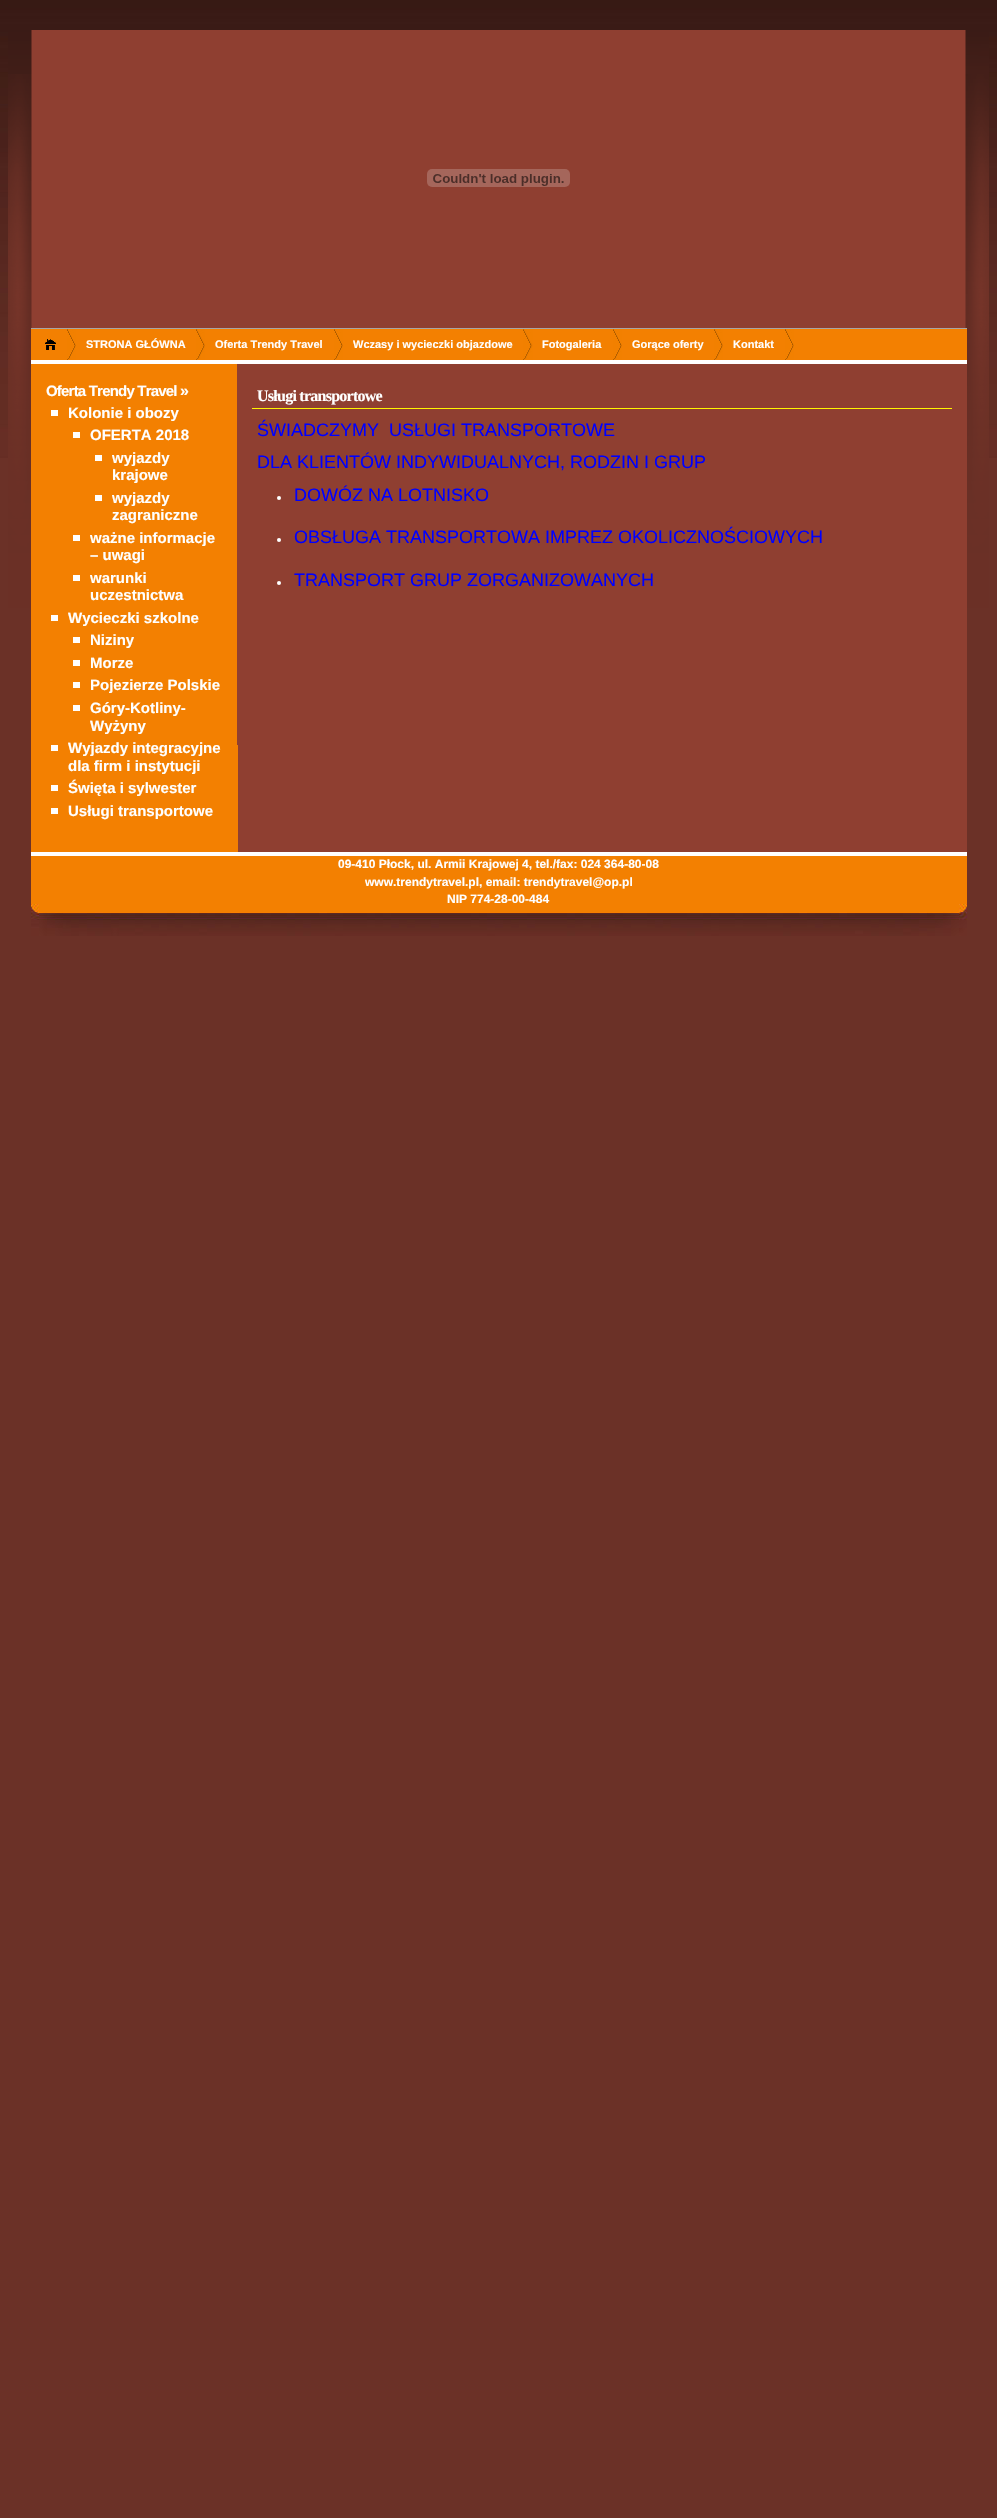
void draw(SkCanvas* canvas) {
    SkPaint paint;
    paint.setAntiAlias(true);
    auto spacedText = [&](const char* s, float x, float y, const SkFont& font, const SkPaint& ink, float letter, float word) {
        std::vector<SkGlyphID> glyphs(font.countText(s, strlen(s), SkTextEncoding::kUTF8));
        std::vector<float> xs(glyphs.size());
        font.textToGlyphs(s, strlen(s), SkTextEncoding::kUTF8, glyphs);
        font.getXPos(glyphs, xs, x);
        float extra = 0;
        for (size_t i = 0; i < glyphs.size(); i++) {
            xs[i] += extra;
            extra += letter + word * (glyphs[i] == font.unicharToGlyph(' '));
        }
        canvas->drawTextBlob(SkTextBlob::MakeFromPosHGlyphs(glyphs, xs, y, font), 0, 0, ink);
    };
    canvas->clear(0xFF6B3127);
    canvas->drawImageRect(SkImages::DeferredFromEncodedData(SkData::MakeFromFileName("img1.png")), SkRect::MakeXYWH(0, 0, 997, 458), SkSamplingOptions());
    canvas->drawImageRect(SkImages::DeferredFromEncodedData(SkData::MakeFromFileName("img2.png")), SkRect::MakeXYWH(8, 30, 981, 578), SkSamplingOptions());
    paint.setColor(0xFFA6A6A6);
    canvas->drawRect(SkRect::MakeXYWH(31, 328, 936, 1), paint);
    canvas->drawImageRect(SkImages::DeferredFromEncodedData(SkData::MakeFromFileName("img3.png")), SkRect::MakeXYWH(427, 169, 143, 18), SkSamplingOptions());
    paint.setColor(0xFFF38001);
    canvas->drawRect(SkRect::MakeXYWH(31, 329, 936, 31), paint);
    paint.setColor(0xFFFFFFFF);
    canvas->drawRect(SkRect::MakeXYWH(31, 360, 936, 4), paint);
    canvas->drawImageRect(SkImages::DeferredFromEncodedData(SkData::MakeFromFileName("img4.png")), SkRect::MakeXYWH(45, 339, 11, 11), SkSamplingOptions());
    canvas->drawImageRect(SkImages::DeferredFromEncodedData(SkData::MakeFromFileName("img5.png")), SkRect::MakeXYWH(67, 329, 9, 31), SkSamplingOptions());
    SkFont font1(fontMgr->matchFamilyStyle("Liberation Sans", SkFontStyle::Bold()), 11);
    font1.setSubpixel(true);
    canvas->drawString("STRONA GŁÓWNA", 86, 348, font1, paint);
    canvas->drawImageRect(SkImages::DeferredFromEncodedData(SkData::MakeFromFileName("img6.png")), SkRect::MakeXYWH(196, 329, 9, 31), SkSamplingOptions());
    canvas->drawString("Oferta Trendy Travel", 215, 348, font1, paint);
    canvas->drawImageRect(SkImages::DeferredFromEncodedData(SkData::MakeFromFileName("img5.png")), SkRect::MakeXYWH(334, 329, 9, 31), SkSamplingOptions());
    canvas->drawString("Wczasy i wycieczki objazdowe", 353, 348, font1, paint);
    canvas->drawImageRect(SkImages::DeferredFromEncodedData(SkData::MakeFromFileName("img7.png")), SkRect::MakeXYWH(523, 329, 10, 31), SkSamplingOptions());
    canvas->drawString("Fotogaleria", 542, 348, font1, paint);
    canvas->drawImageRect(SkImages::DeferredFromEncodedData(SkData::MakeFromFileName("img5.png")), SkRect::MakeXYWH(613, 329, 9, 31), SkSamplingOptions());
    canvas->drawString("Gorące oferty", 632, 348, font1, paint);
    canvas->drawImageRect(SkImages::DeferredFromEncodedData(SkData::MakeFromFileName("img6.png")), SkRect::MakeXYWH(714, 329, 9, 31), SkSamplingOptions());
    canvas->drawString("Kontakt", 733, 348, font1, paint);
    canvas->drawImageRect(SkImages::DeferredFromEncodedData(SkData::MakeFromFileName("img5.png")), SkRect::MakeXYWH(785, 329, 9, 31), SkSamplingOptions());
    paint.setColor(0xFF8F3F31);
    canvas->drawRect(SkRect::MakeXYWH(238, 745, 729, 107), paint);
    paint.setColor(0xFFF38001);
    canvas->drawRect(SkRect::MakeXYWH(31, 364, 207, 488), paint);
    SkFont font2(fontMgr->matchFamilyStyle("Liberation Sans", SkFontStyle::Bold()), 15);
    font2.setSubpixel(true);
    paint.setColor(0xFFFFFFFF);
    spacedText("Oferta Trendy Travel", 46, 396, font2, paint, -0.8f, 0);
    SkFont font3(fontMgr->matchFamilyStyle("Liberation Sans", SkFontStyle::Bold()), 16);
    font3.setSubpixel(true);
    spacedText("»", 180, 396, font3, paint, -0.8f, 0);
    canvas->drawRect(SkRect::MakeXYWH(51, 410, 7, 6), paint);
    canvas->drawString("Kolonie i obozy", 68, 418, font2, paint);
    canvas->drawRect(SkRect::MakeXYWH(73, 432, 7, 6), paint);
    canvas->drawString("OFERTA 2018", 90, 440, font2, paint);
    canvas->drawRect(SkRect::MakeXYWH(95, 455, 7, 6), paint);
    canvas->drawString("wyjazdy", 112, 463, font2, paint);
    canvas->drawString("krajowe", 112, 480, font2, paint);
    canvas->drawRect(SkRect::MakeXYWH(95, 495, 7, 6), paint);
    canvas->drawString("wyjazdy", 112, 503, font2, paint);
    canvas->drawString("zagraniczne", 112, 520, font2, paint);
    canvas->drawRect(SkRect::MakeXYWH(73, 535, 7, 6), paint);
    canvas->drawString("ważne informacje", 90, 543, font2, paint);
    canvas->drawString("– uwagi", 90, 560, font2, paint);
    canvas->drawRect(SkRect::MakeXYWH(73, 575, 7, 6), paint);
    canvas->drawString("warunki", 90, 583, font2, paint);
    canvas->drawString("uczestnictwa", 90, 600, font2, paint);
    canvas->drawRect(SkRect::MakeXYWH(51, 615, 7, 6), paint);
    canvas->drawString("Wycieczki szkolne", 68, 623, font2, paint);
    canvas->drawRect(SkRect::MakeXYWH(73, 637, 7, 6), paint);
    canvas->drawString("Niziny", 90, 645, font2, paint);
    canvas->drawRect(SkRect::MakeXYWH(73, 660, 7, 6), paint);
    canvas->drawString("Morze", 90, 668, font2, paint);
    canvas->drawRect(SkRect::MakeXYWH(73, 682, 7, 6), paint);
    canvas->drawString("Pojezierze Polskie", 90, 690, font2, paint);
    canvas->drawRect(SkRect::MakeXYWH(73, 705, 7, 6), paint);
    canvas->drawString("Góry-Kotliny-", 90, 713, font2, paint);
    canvas->drawString("Wyżyny", 90, 731, font2, paint);
    canvas->drawRect(SkRect::MakeXYWH(51, 745, 7, 6), paint);
    canvas->drawString("Wyjazdy integracyjne", 68, 753, font2, paint);
    canvas->drawString("dla firm i instytucji", 68, 771, font2, paint);
    canvas->drawRect(SkRect::MakeXYWH(51, 785, 7, 6), paint);
    canvas->drawString("Święta i sylwester", 68, 793, font2, paint);
    canvas->drawRect(SkRect::MakeXYWH(51, 808, 7, 6), paint);
    canvas->drawString("Usługi transportowe", 68, 816, font2, paint);
    paint.setColor(0xFF8F3F31);
    canvas->drawRect(SkRect::MakeXYWH(237, 364, 730, 381), paint);
    paint.setColor(0xFFFFF500);
    canvas->drawRect(SkRect::MakeXYWH(252, 408, 700, 1), paint);
    SkFont font4(fontMgr->matchFamilyStyle("Liberation Serif", SkFontStyle::Bold()), 16);
    font4.setSubpixel(true);
    paint.setColor(0xFFFFFFFF);
    spacedText("Usługi transportowe", 257, 401, font4, paint, -0.75f, 0);
    SkFont font5(fontMgr->matchFamilyStyle("Liberation Sans", SkFontStyle::Normal()), 18);
    font5.setSubpixel(true);
    paint.setColor(0xFF0000FF);
    canvas->drawString("ŚWIADCZYMY  USŁUGI TRANSPORTOWE", 257, 436, font5, paint);
    canvas->drawString("DLA KLIENTÓW INDYWIDUALNYCH, RODZIN I GRUP", 257, 468, font5, paint);
    paint.setColor(0xFFFFFFFF);
    canvas->drawCircle(279, 498, 2, paint);
    paint.setColor(0xFF0000FF);
    canvas->drawString("DOWÓZ NA LOTNISKO", 294, 501, font5, paint);
    paint.setColor(0xFFFFFFFF);
    canvas->drawCircle(279, 540, 2, paint);
    paint.setColor(0xFF0000FF);
    canvas->drawString("OBSŁUGA TRANSPORTOWA IMPREZ OKOLICZNOŚCIOWYCH", 294, 543, font5, paint);
    paint.setColor(0xFFFFFFFF);
    canvas->drawCircle(279, 583, 2, paint);
    paint.setColor(0xFF0000FF);
    canvas->drawString("TRANSPORT GRUP ZORGANIZOWANYCH", 294, 586, font5, paint);
    canvas->drawImageRect(SkImages::DeferredFromEncodedData(SkData::MakeFromFileName("img8.png")), SkRect::MakeXYWH(31, 856, 936, 80), SkSamplingOptions());
    paint.setColor(0xFFFFFFFF);
    canvas->drawRect(SkRect::MakeXYWH(31, 852, 936, 4), paint);
    SkFont font6(fontMgr->matchFamilyStyle("Liberation Sans", SkFontStyle::Bold()), 12);
    font6.setSubpixel(true);
    canvas->drawString("09-410 Płock, ul. Armii Krajowej 4, tel./fax: 024 364-80-08", 338, 868, font6, paint);
    canvas->drawString("www.trendytravel.pl, email: trendytravel@op.pl", 365, 886, font6, paint);
    canvas->drawString("NIP 774-28-00-484", 447, 903, font6, paint);
}
